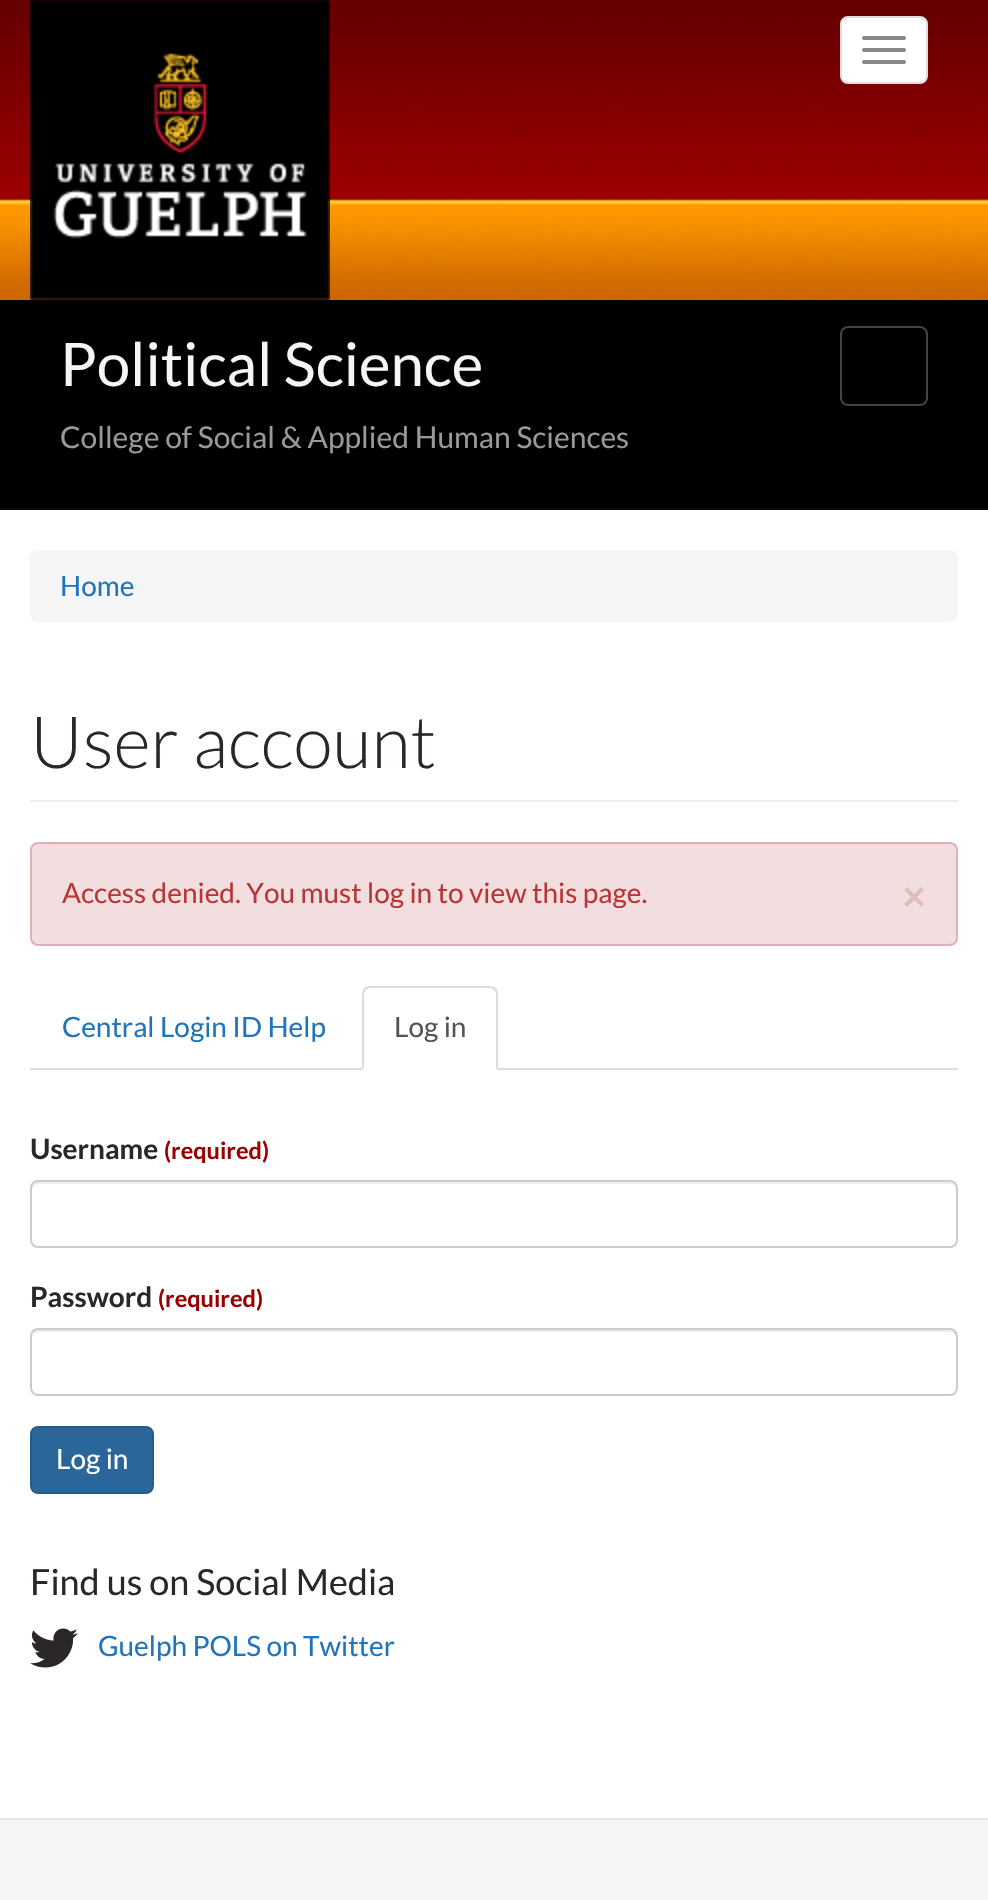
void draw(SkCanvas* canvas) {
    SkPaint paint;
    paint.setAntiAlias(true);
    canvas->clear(0xFFFFFFFF);
    canvas->drawImageRect(SkImages::DeferredFromEncodedData(SkData::MakeFromFileName("img1.png")), SkRect::MakeXYWH(0, 0, 988, 300), SkSamplingOptions());
    canvas->drawImageRect(SkImages::DeferredFromEncodedData(SkData::MakeFromFileName("img2.png")), SkRect::MakeXYWH(30, 0, 928, 300), SkSamplingOptions());
    canvas->drawImageRect(SkImages::DeferredFromEncodedData(SkData::MakeFromFileName("img3.png")), SkRect::MakeXYWH(30, 0, 300, 300), SkSamplingOptions());
    paint.setColor(0xFFFFFFFF);
    canvas->drawRoundRect(SkRect::MakeXYWH(841, 17, 86, 66), 7, 7, paint);
    paint.setStyle(SkPaint::kStroke_Style);
    paint.setStrokeWidth(2);
    paint.setColor(0xFFDDDDDD);
    canvas->drawRoundRect(SkRect::MakeXYWH(841, 17, 86, 66), 7, 7, paint);
    paint.setStyle(SkPaint::kFill_Style);
    paint.setColor(0xFF888888);
    canvas->drawRoundRect(SkRect::MakeXYWH(862, 36, 44, 4), 2, 2, paint);
    canvas->drawRoundRect(SkRect::MakeXYWH(862, 48, 44, 4), 2, 2, paint);
    canvas->drawRoundRect(SkRect::MakeXYWH(862, 60, 44, 4), 2, 2, paint);
    paint.setColor(0xFF000000);
    canvas->drawRect(SkRect::MakeXYWH(0, 300, 988, 208), paint);
    paint.setColor(0xFF080808);
    canvas->drawRect(SkRect::MakeXYWH(0, 508, 988, 2), paint);
    SkFont font1(fontMgr->matchFamilyStyle("Lato", SkFontStyle::Normal()), 60);
    font1.setSubpixel(true);
    paint.setColor(0xFFF5F5F5);
    canvas->drawString("Political Science", 60, 386, font1, paint);
    paint.setStyle(SkPaint::kStroke_Style);
    paint.setColor(0xFF444444);
    canvas->drawRoundRect(SkRect::MakeXYWH(841, 327, 86, 78), 7, 7, paint);
    SkFont font2(fontMgr->matchFamilyStyle("Lato", SkFontStyle::Normal()), 30);
    font2.setSubpixel(true);
    paint.setStyle(SkPaint::kFill_Style);
    paint.setColor(0xFF999999);
    canvas->drawString("College of Social & Applied Human Sciences", 60, 448, font2, paint);
    paint.setColor(0xFFF5F5F5);
    canvas->drawRoundRect(SkRect::MakeXYWH(30, 550, 928, 72), 8, 8, paint);
    SkFont font3(fontMgr->matchFamilyStyle("Lato", SkFontStyle::Normal()), 28);
    font3.setSubpixel(true);
    paint.setColor(0xFF2174BB);
    canvas->drawString("Home", 60, 596, font3, paint);
    paint.setColor(0xFFEEEEEE);
    canvas->drawRect(SkRect::MakeXYWH(30, 800, 928, 2), paint);
    SkFont font4(fontMgr->matchFamilyStyle("Lato", SkFontStyle(300, SkFontStyle::kNormal_Width, SkFontStyle::kUpright_Slant)), 72);
    font4.setSubpixel(true);
    paint.setColor(0xFF2C2727);
    canvas->drawString("User account", 30, 768, font4, paint);
    paint.setColor(0xFFF2DEDE);
    canvas->drawRoundRect(SkRect::MakeXYWH(31, 843, 926, 102), 7, 7, paint);
    paint.setStyle(SkPaint::kStroke_Style);
    paint.setColor(0xFFE0B0B8);
    canvas->drawRoundRect(SkRect::MakeXYWH(31, 843, 926, 102), 7, 7, paint);
    paint.setStyle(SkPaint::kFill_Style);
    paint.setColor(0xFFB83635);
    canvas->drawString("Access denied. You must log in to view this page.", 62, 903, font3, paint);
    SkFont font5(fontMgr->matchFamilyStyle("Lato", SkFontStyle::Bold()), 42);
    font5.setSubpixel(true);
    paint.setColor(0xFFDFBDBD);
    canvas->drawString("×", 902, 911, font5, paint);
    paint.setColor(0xFFDDDDDD);
    canvas->drawRect(SkRect::MakeXYWH(30, 1068, 928, 2), paint);
    paint.setColor(0xFF2174BB);
    canvas->drawString("Central Login ID Help", 62, 1037, font3, paint);
    paint.setColor(0xFFFFFFFF);
    canvas->drawPath(SkPathBuilder().moveTo(370, 986).lineTo(490, 986).cubicTo(494.5f, 986, 498, 989.5f, 498, 994).lineTo(498, 1070).lineTo(362, 1070).lineTo(362, 994).cubicTo(362, 989.5f, 365.5f, 986, 370, 986).close().detach(), paint);
    paint.setColor(0xFFDDDDDD);
    canvas->drawPath(SkPathBuilder().moveTo(370, 986).cubicTo(368, 986, 366, 987, 364, 988).lineTo(366, 990).lineTo(369, 988).lineTo(491, 988).lineTo(494, 990).lineTo(496, 988).cubicTo(494, 987, 492, 986, 490, 986).close().detach(), paint);
    canvas->drawPath(SkPathBuilder().moveTo(498, 1070).lineTo(498, 994).cubicTo(498, 992, 497, 990, 496, 988).lineTo(494, 990).lineTo(496, 993).lineTo(496, 1068).close().detach(), paint);
    canvas->drawPath(SkPathBuilder().moveTo(362, 1070).lineTo(364, 1068).lineTo(364, 993).lineTo(366, 990).lineTo(364, 988).cubicTo(363, 990, 362, 992, 362, 994).close().detach(), paint);
    paint.setColor(0xFF555555);
    canvas->drawString("Log in", 394, 1037, font3, paint);
    SkFont font6(fontMgr->matchFamilyStyle("Lato", SkFontStyle::Bold()), 28);
    font6.setSubpixel(true);
    paint.setColor(0xFF2C2727);
    canvas->drawString("Username", 30, 1159, font6, paint);
    SkFont font7(fontMgr->matchFamilyStyle("Lato", SkFontStyle::Bold()), 23.5f);
    font7.setSubpixel(true);
    paint.setColor(0xFF990000);
    canvas->drawString("(required)", 164, 1159, font7, paint);
    paint.setColor(0xFFECECEC);
    canvas->drawPath(SkPathBuilder().moveTo(38, 1184).lineTo(950, 1184).cubicTo(953, 1184, 956, 1187, 956, 1190).lineTo(956, 1188).cubicTo(956, 1185, 953, 1182, 950, 1182).lineTo(38, 1182).cubicTo(35, 1182, 32, 1185, 32, 1188).lineTo(32, 1190).cubicTo(32, 1187, 35, 1184, 38, 1184).close().detach(), paint);
    paint.setStyle(SkPaint::kStroke_Style);
    paint.setColor(0xFFCCCCCC);
    canvas->drawRoundRect(SkRect::MakeXYWH(31, 1181, 926, 66), 7, 7, paint);
    paint.setStyle(SkPaint::kFill_Style);
    paint.setColor(0xFF2C2727);
    canvas->drawString("Password", 30, 1307, font6, paint);
    paint.setColor(0xFF990000);
    canvas->drawString("(required)", 158, 1307, font7, paint);
    paint.setColor(0xFFECECEC);
    canvas->drawPath(SkPathBuilder().moveTo(38, 1332).lineTo(950, 1332).cubicTo(953, 1332, 956, 1335, 956, 1338).lineTo(956, 1336).cubicTo(956, 1333, 953, 1330, 950, 1330).lineTo(38, 1330).cubicTo(35, 1330, 32, 1333, 32, 1336).lineTo(32, 1338).cubicTo(32, 1335, 35, 1332, 38, 1332).close().detach(), paint);
    paint.setStyle(SkPaint::kStroke_Style);
    paint.setColor(0xFFCCCCCC);
    canvas->drawRoundRect(SkRect::MakeXYWH(31, 1329, 926, 66), 7, 7, paint);
    paint.setStyle(SkPaint::kFill_Style);
    paint.setColor(0xFF2B669A);
    canvas->drawRoundRect(SkRect::MakeXYWH(31, 1427, 122, 66), 7, 7, paint);
    paint.setStyle(SkPaint::kStroke_Style);
    paint.setColor(0xFF265C8A);
    canvas->drawRoundRect(SkRect::MakeXYWH(31, 1427, 122, 66), 7, 7, paint);
    paint.setStyle(SkPaint::kFill_Style);
    paint.setColor(0xFFFFFFFF);
    canvas->drawString("Log in", 56, 1469, font3, paint);
    SkFont font8(fontMgr->matchFamilyStyle("Lato", SkFontStyle::Normal()), 36);
    font8.setSubpixel(true);
    paint.setColor(0xFF2C2727);
    canvas->drawString("Find us on Social Media", 30, 1595, font8, paint);
    canvas->drawImageRect(SkImages::DeferredFromEncodedData(SkData::MakeFromFileName("img4.png")), SkRect::MakeXYWH(30, 1628, 48, 40), SkSamplingOptions());
    paint.setColor(0xFF2174BB);
    canvas->drawString("Guelph POLS on Twitter", 98, 1656, font3, paint);
    paint.setColor(0xFFF5F5F5);
    canvas->drawRect(SkRect::MakeXYWH(0, 1820, 988, 80), paint);
    paint.setColor(0xFFE5E5E5);
    canvas->drawRect(SkRect::MakeXYWH(0, 1818, 988, 2), paint);
}
